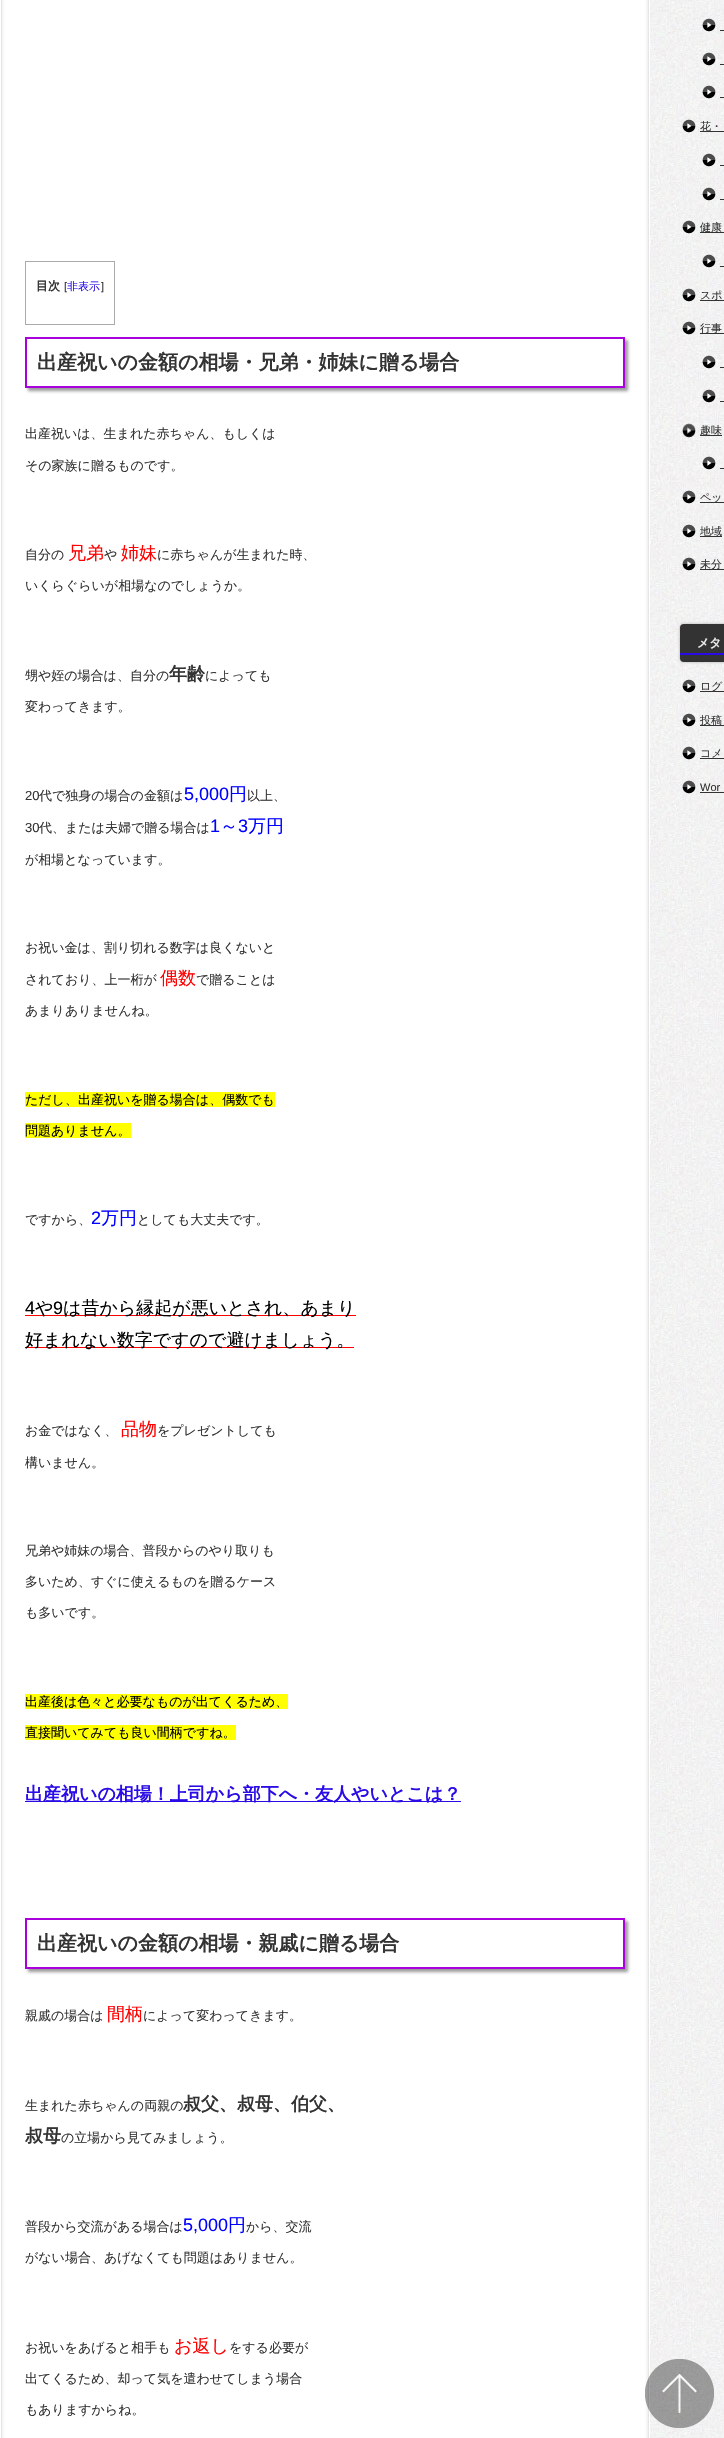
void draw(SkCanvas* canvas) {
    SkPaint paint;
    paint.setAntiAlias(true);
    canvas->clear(0xFFFFFFFF);
    canvas->drawImageRect(SkImages::DeferredFromEncodedData(SkData::MakeFromFileName("img1.png")), SkRect::MakeXYWH(650, 0, 74, 2438), SkSamplingOptions());
    canvas->drawImageRect(SkImages::DeferredFromEncodedData(SkData::MakeFromFileName("img2.png")), SkRect::MakeXYWH(0, 0, 650, 2438), SkSamplingOptions());
    paint.setStyle(SkPaint::kStroke_Style);
    paint.setStrokeWidth(1);
    paint.setColor(0xFFAAAAAA);
    canvas->drawRect(SkRect::MakeXYWH(25.5f, 261.5f, 89, 63), paint);
    SkFont font1(fontMgr->matchFamilyStyle("WenQuanYi Zen Hei", SkFontStyle::Bold()), 12);
    font1.setSubpixel(true);
    paint.setStyle(SkPaint::kFill_Style);
    paint.setColor(0xFF333333);
    canvas->drawString("目次", 36, 290, font1, paint);
    SkFont font2(fontMgr->matchFamilyStyle("Liberation Sans", SkFontStyle::Normal()), 11);
    font2.setSubpixel(true);
    canvas->drawString("[", 64, 290, font2, paint);
    SkFont font3(fontMgr->matchFamilyStyle("WenQuanYi Zen Hei", SkFontStyle(500, SkFontStyle::kNormal_Width, SkFontStyle::kUpright_Slant)), 11);
    font3.setSubpixel(true);
    paint.setColor(0xFF290CE6);
    canvas->drawString("非表示", 67, 290, font3, paint);
    paint.setColor(0xFF333333);
    canvas->drawString("]", 101, 290, font2, paint);
    canvas->save();
    canvas->clipPath(SkPathBuilder(SkPathFillType::kEvenOdd).moveTo(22, 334).lineTo(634, 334).lineTo(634, 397).lineTo(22, 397).close().moveTo(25, 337).lineTo(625, 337).lineTo(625, 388).lineTo(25, 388).close().detach(), true);
    paint.setColor(0x66000000);
    paint.setMaskFilter(SkMaskFilter::MakeBlur(kNormal_SkBlurStyle, 1.5f));
    canvas->drawRect(SkRect::MakeXYWH(28, 340, 600, 51), paint);
    paint.setMaskFilter(nullptr);
    canvas->restore();
    paint.setStyle(SkPaint::kStroke_Style);
    paint.setStrokeWidth(2);
    paint.setColor(0xFFA901DB);
    canvas->drawRect(SkRect::MakeXYWH(26, 338, 598, 49), paint);
    SkFont font4(fontMgr->matchFamilyStyle("WenQuanYi Zen Hei", SkFontStyle::Bold()), 20);
    font4.setSubpixel(true);
    paint.setStyle(SkPaint::kFill_Style);
    paint.setColor(0xFF333333);
    canvas->drawString("出産祝いの金額の相場・兄弟・姉妹に贈る場合", 37, 369, font4, paint);
    SkFont font5(fontMgr->matchFamilyStyle("WenQuanYi Zen Hei", SkFontStyle(500, SkFontStyle::kNormal_Width, SkFontStyle::kUpright_Slant)), 13);
    font5.setSubpixel(true);
    canvas->drawString("出産祝いは、生まれた赤ちゃん、もしくは", 25, 438, font5, paint);
    canvas->drawString("その家族に贈るものです。", 25, 470, font5, paint);
    canvas->drawString("自分の", 25, 559, font5, paint);
    SkFont font6(fontMgr->matchFamilyStyle("WenQuanYi Zen Hei", SkFontStyle(500, SkFontStyle::kNormal_Width, SkFontStyle::kUpright_Slant)), 18);
    font6.setSubpixel(true);
    paint.setColor(0xFFFF0000);
    canvas->drawString("兄弟", 68, 559, font6, paint);
    paint.setColor(0xFF333333);
    canvas->drawString("や", 104, 559, font5, paint);
    paint.setColor(0xFFFF0000);
    canvas->drawString("姉妹", 121, 559, font6, paint);
    paint.setColor(0xFF333333);
    canvas->drawString("に赤ちゃんが生まれた時、", 157, 559, font5, paint);
    canvas->drawString("いくらぐらいが相場なのでしょうか。", 25, 590, font5, paint);
    canvas->drawString("甥や姪の場合は、自分の", 25, 680, font5, paint);
    SkFont font7(fontMgr->matchFamilyStyle("WenQuanYi Zen Hei", SkFontStyle::Bold()), 18);
    font7.setSubpixel(true);
    canvas->drawString("年齢", 169, 680, font7, paint);
    canvas->drawString("によっても", 205, 680, font5, paint);
    canvas->drawString("変わってきます。", 25, 711, font5, paint);
    SkFont font8(fontMgr->matchFamilyStyle("Liberation Sans", SkFontStyle::Normal()), 13);
    font8.setSubpixel(true);
    canvas->drawString("20", 25, 800, font8, paint);
    canvas->drawString("代で独身の場合の金額は", 39, 800, font5, paint);
    SkFont font9(fontMgr->matchFamilyStyle("Liberation Sans", SkFontStyle::Normal()), 18);
    font9.setSubpixel(true);
    paint.setColor(0xFF0000FF);
    canvas->drawString("5,000", 184, 800, font9, paint);
    canvas->drawString("円", 229, 800, font6, paint);
    paint.setColor(0xFF333333);
    canvas->drawString("以上、", 247, 800, font5, paint);
    canvas->drawString("30", 25, 832, font8, paint);
    canvas->drawString("代、または夫婦で贈る場合は", 39, 832, font5, paint);
    paint.setColor(0xFF0000FF);
    canvas->drawString("1", 210, 832, font9, paint);
    canvas->drawString("～", 220, 832, font6, paint);
    canvas->drawString("3", 238, 832, font9, paint);
    canvas->drawString("万円", 248, 832, font6, paint);
    paint.setColor(0xFF333333);
    canvas->drawString("が相場となっています。", 25, 864, font5, paint);
    canvas->drawString("お祝い金は、割り切れる数字は良くないと", 25, 952, font5, paint);
    canvas->drawString("されており、上一桁が", 25, 984, font5, paint);
    paint.setColor(0xFFFF0000);
    canvas->drawString("偶数", 160, 984, font6, paint);
    paint.setColor(0xFF333333);
    canvas->drawString("で贈ることは", 196, 984, font5, paint);
    canvas->drawString("あまりありませんね。", 25, 1015, font5, paint);
    paint.setColor(0xFFFFFF00);
    canvas->drawRect(SkRect::MakeXYWH(25, 1092, 250, 15), paint);
    paint.setColor(0xFF000000);
    canvas->drawString("ただし、出産祝いを贈る場合は、偶数でも", 25, 1104, font5, paint);
    paint.setColor(0xFFFFFF00);
    canvas->drawRect(SkRect::MakeXYWH(25, 1123, 106, 15), paint);
    paint.setColor(0xFF000000);
    canvas->drawString("問題ありません。", 25, 1135, font5, paint);
    paint.setColor(0xFF333333);
    canvas->drawString("ですから、", 25, 1224, font5, paint);
    paint.setColor(0xFF0000FF);
    canvas->drawString("2", 91, 1224, font9, paint);
    canvas->drawString("万円", 101, 1224, font6, paint);
    paint.setColor(0xFF333333);
    canvas->drawString("としても大丈夫です。", 137, 1224, font5, paint);
    paint.setColor(0xFF000000);
    canvas->drawString("4", 25, 1314, font9, paint);
    paint.setColor(0xFFFF0000);
    canvas->drawRect(SkRect::MakeXYWH(25, 1315, 331, 1), paint);
    paint.setColor(0xFF000000);
    canvas->drawString("や", 35, 1314, font6, paint);
    canvas->drawString("9", 53, 1314, font9, paint);
    canvas->drawString("は昔から縁起が悪いとされ、あまり", 63, 1314, font6, paint);
    paint.setColor(0xFFFF0000);
    canvas->drawRect(SkRect::MakeXYWH(25, 1347, 329, 1), paint);
    paint.setColor(0xFF000000);
    canvas->drawString("好まれない数字ですので避けましょう。", 25, 1346, font6, paint);
    paint.setColor(0xFF333333);
    canvas->drawString("お金ではなく、", 25, 1435, font5, paint);
    paint.setColor(0xFFFF0000);
    canvas->drawString("品物", 121, 1435, font6, paint);
    paint.setColor(0xFF333333);
    canvas->drawString("をプレゼントしても", 157, 1435, font5, paint);
    canvas->drawString("構いません。", 25, 1467, font5, paint);
    canvas->drawString("兄弟や姉妹の場合、普段からのやり取りも", 25, 1555, font5, paint);
    canvas->drawString("多いため、すぐに使えるものを贈るケース", 25, 1586, font5, paint);
    canvas->drawString("も多いです。", 25, 1617, font5, paint);
    paint.setColor(0xFFFFFF00);
    canvas->drawRect(SkRect::MakeXYWH(25, 1694, 263, 15), paint);
    paint.setColor(0xFF000000);
    canvas->drawString("出産後は色々と必要なものが出てくるため、", 25, 1706, font5, paint);
    paint.setColor(0xFFFFFF00);
    canvas->drawRect(SkRect::MakeXYWH(25, 1725, 211, 15), paint);
    paint.setColor(0xFF000000);
    canvas->drawString("直接聞いてみても良い間柄ですね。", 25, 1737, font5, paint);
    paint.setColor(0xFF290CE6);
    canvas->drawRect(SkRect::MakeXYWH(25, 1801, 436, 1), paint);
    canvas->drawString("出産祝いの相場！上司から部下へ・友人やいとこは？", 25, 1800, font7, paint);
    canvas->save();
    canvas->clipPath(SkPathBuilder(SkPathFillType::kEvenOdd).moveTo(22, 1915).lineTo(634, 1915).lineTo(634, 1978).lineTo(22, 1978).close().moveTo(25, 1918).lineTo(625, 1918).lineTo(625, 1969).lineTo(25, 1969).close().detach(), true);
    paint.setColor(0x66000000);
    paint.setMaskFilter(SkMaskFilter::MakeBlur(kNormal_SkBlurStyle, 1.5f));
    canvas->drawRect(SkRect::MakeXYWH(28, 1921, 600, 51), paint);
    paint.setMaskFilter(nullptr);
    canvas->restore();
    paint.setStyle(SkPaint::kStroke_Style);
    paint.setColor(0xFFA901DB);
    canvas->drawRect(SkRect::MakeXYWH(26, 1919, 598, 49), paint);
    paint.setStyle(SkPaint::kFill_Style);
    paint.setColor(0xFF333333);
    canvas->drawString("出産祝いの金額の相場・親戚に贈る場合", 37, 1950, font4, paint);
    canvas->drawString("親戚の場合は", 25, 2020, font5, paint);
    paint.setColor(0xFFFF0000);
    canvas->drawString("間柄", 107, 2020, font6, paint);
    paint.setColor(0xFF333333);
    canvas->drawString("によって変わってきます。", 143, 2020, font5, paint);
    canvas->drawString("生まれた赤ちゃんの両親の", 25, 2110, font5, paint);
    canvas->drawString("叔父、叔母、伯父、", 183, 2110, font7, paint);
    canvas->drawString("叔母", 25, 2142, font7, paint);
    canvas->drawString("の立場から見てみましょう。", 61, 2142, font5, paint);
    canvas->drawString("普段から交流がある場合は", 25, 2231, font5, paint);
    paint.setColor(0xFF0000FF);
    canvas->drawString("5,000", 183, 2231, font9, paint);
    canvas->drawString("円", 228, 2231, font6, paint);
    paint.setColor(0xFF333333);
    canvas->drawString("から、交流", 246, 2231, font5, paint);
    canvas->drawString("がない場合、あげなくても問題はありません。", 25, 2262, font5, paint);
    canvas->drawString("お祝いをあげると相手も", 25, 2352, font5, paint);
    paint.setColor(0xFFFF0000);
    canvas->drawString("お返し", 174, 2352, font6, paint);
    paint.setColor(0xFF333333);
    canvas->drawString("をする必要が", 229, 2352, font5, paint);
    canvas->drawString("出てくるため、却って気を遣わせてしまう場合", 25, 2383, font5, paint);
    canvas->drawString("もありますからね。", 25, 2414, font5, paint);
    canvas->drawImageRect(SkImages::DeferredFromEncodedData(SkData::MakeFromFileName("img3.png")), SkRect::MakeXYWH(702, 18, 14, 14), SkSamplingOptions());
    canvas->drawRect(SkRect::MakeXYWH(720, 30, 4, 1), paint);
    canvas->drawImageRect(SkImages::DeferredFromEncodedData(SkData::MakeFromFileName("img4.png")), SkRect::MakeXYWH(702, 52, 14, 14), SkSamplingOptions());
    canvas->drawRect(SkRect::MakeXYWH(720, 64, 4, 1), paint);
    canvas->drawImageRect(SkImages::DeferredFromEncodedData(SkData::MakeFromFileName("img5.png")), SkRect::MakeXYWH(702, 85, 14, 14), SkSamplingOptions());
    canvas->drawRect(SkRect::MakeXYWH(720, 97, 4, 1), paint);
    canvas->drawImageRect(SkImages::DeferredFromEncodedData(SkData::MakeFromFileName("img6.png")), SkRect::MakeXYWH(682, 119, 14, 14), SkSamplingOptions());
    canvas->drawRect(SkRect::MakeXYWH(700, 131, 24, 1), paint);
    canvas->drawString("花・", 700, 130, font3, paint);
    canvas->drawImageRect(SkImages::DeferredFromEncodedData(SkData::MakeFromFileName("img7.png")), SkRect::MakeXYWH(702, 153, 14, 14), SkSamplingOptions());
    canvas->drawRect(SkRect::MakeXYWH(720, 165, 4, 1), paint);
    canvas->drawImageRect(SkImages::DeferredFromEncodedData(SkData::MakeFromFileName("img8.png")), SkRect::MakeXYWH(702, 187, 14, 14), SkSamplingOptions());
    canvas->drawRect(SkRect::MakeXYWH(720, 199, 4, 1), paint);
    canvas->drawImageRect(SkImages::DeferredFromEncodedData(SkData::MakeFromFileName("img9.png")), SkRect::MakeXYWH(682, 220, 14, 14), SkSamplingOptions());
    canvas->drawRect(SkRect::MakeXYWH(700, 232, 24, 1), paint);
    canvas->drawString("健康", 700, 231, font3, paint);
    canvas->drawImageRect(SkImages::DeferredFromEncodedData(SkData::MakeFromFileName("img10.png")), SkRect::MakeXYWH(702, 254, 14, 14), SkSamplingOptions());
    canvas->drawRect(SkRect::MakeXYWH(720, 266, 4, 1), paint);
    canvas->drawImageRect(SkImages::DeferredFromEncodedData(SkData::MakeFromFileName("img11.png")), SkRect::MakeXYWH(682, 288, 14, 14), SkSamplingOptions());
    canvas->drawRect(SkRect::MakeXYWH(700, 300, 24, 1), paint);
    canvas->drawString("スポ", 700, 299, font3, paint);
    canvas->drawImageRect(SkImages::DeferredFromEncodedData(SkData::MakeFromFileName("img12.png")), SkRect::MakeXYWH(682, 321, 14, 14), SkSamplingOptions());
    canvas->drawRect(SkRect::MakeXYWH(700, 333, 24, 1), paint);
    canvas->drawString("行事", 700, 332, font3, paint);
    canvas->drawImageRect(SkImages::DeferredFromEncodedData(SkData::MakeFromFileName("img13.png")), SkRect::MakeXYWH(702, 355, 14, 14), SkSamplingOptions());
    canvas->drawRect(SkRect::MakeXYWH(720, 367, 4, 1), paint);
    canvas->drawImageRect(SkImages::DeferredFromEncodedData(SkData::MakeFromFileName("img14.png")), SkRect::MakeXYWH(702, 389, 14, 14), SkSamplingOptions());
    canvas->drawRect(SkRect::MakeXYWH(720, 401, 4, 1), paint);
    canvas->drawImageRect(SkImages::DeferredFromEncodedData(SkData::MakeFromFileName("img15.png")), SkRect::MakeXYWH(682, 423, 14, 15), SkSamplingOptions());
    canvas->drawRect(SkRect::MakeXYWH(700, 435, 22, 1), paint);
    canvas->drawString("趣味", 700, 434, font3, paint);
    canvas->drawImageRect(SkImages::DeferredFromEncodedData(SkData::MakeFromFileName("img16.png")), SkRect::MakeXYWH(702, 456, 14, 14), SkSamplingOptions());
    canvas->drawRect(SkRect::MakeXYWH(720, 468, 4, 1), paint);
    canvas->drawImageRect(SkImages::DeferredFromEncodedData(SkData::MakeFromFileName("img17.png")), SkRect::MakeXYWH(682, 490, 14, 14), SkSamplingOptions());
    canvas->drawRect(SkRect::MakeXYWH(700, 502, 24, 1), paint);
    canvas->drawString("ペッ", 700, 501, font3, paint);
    canvas->drawImageRect(SkImages::DeferredFromEncodedData(SkData::MakeFromFileName("img18.png")), SkRect::MakeXYWH(682, 524, 14, 14), SkSamplingOptions());
    canvas->drawRect(SkRect::MakeXYWH(700, 536, 22, 1), paint);
    canvas->drawString("地域", 700, 535, font3, paint);
    canvas->drawImageRect(SkImages::DeferredFromEncodedData(SkData::MakeFromFileName("img19.png")), SkRect::MakeXYWH(682, 557, 14, 14), SkSamplingOptions());
    canvas->drawRect(SkRect::MakeXYWH(700, 569, 24, 1), paint);
    canvas->drawString("未分", 700, 568, font3, paint);
    paint.setColor(0xFFAAAAAA);
    paint.setMaskFilter(SkMaskFilter::MakeBlur(kNormal_SkBlurStyle, 1.5f));
    canvas->drawRoundRect(SkRect::MakeXYWH(680, 624, 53, 38), 4, 4, paint);
    paint.setMaskFilter(nullptr);
    paint.setColor(0xFF333333);
    canvas->drawRoundRect(SkRect::MakeXYWH(680, 624, 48, 38), 4, 4, paint);
    paint.setColor(0xFFEEEEEE);
    canvas->drawString("メタ", 697, 647, font1, paint);
    paint.setColor(0xFF290CE6);
    canvas->drawRect(SkRect::MakeXYWH(680, 653, 44, 2), paint);
    canvas->drawImageRect(SkImages::DeferredFromEncodedData(SkData::MakeFromFileName("img20.png")), SkRect::MakeXYWH(682, 679, 14, 14), SkSamplingOptions());
    paint.setColor(0xFF333333);
    canvas->drawRect(SkRect::MakeXYWH(700, 691, 24, 1), paint);
    canvas->drawString("ログ", 700, 690, font3, paint);
    canvas->drawImageRect(SkImages::DeferredFromEncodedData(SkData::MakeFromFileName("img21.png")), SkRect::MakeXYWH(682, 713, 14, 14), SkSamplingOptions());
    canvas->drawRect(SkRect::MakeXYWH(700, 725, 24, 1), paint);
    canvas->drawString("投稿", 700, 724, font3, paint);
    canvas->drawImageRect(SkImages::DeferredFromEncodedData(SkData::MakeFromFileName("img22.png")), SkRect::MakeXYWH(682, 746, 14, 14), SkSamplingOptions());
    canvas->drawString("コメ", 700, 757, font3, paint);
    canvas->drawRect(SkRect::MakeXYWH(700, 758, 24, 1), paint);
    canvas->drawImageRect(SkImages::DeferredFromEncodedData(SkData::MakeFromFileName("img23.png")), SkRect::MakeXYWH(682, 780, 14, 14), SkSamplingOptions());
    canvas->drawString("Wor", 700, 791, font2, paint);
    canvas->drawRect(SkRect::MakeXYWH(700, 792, 24, 1), paint);
    canvas->drawImageRect(SkImages::DeferredFromEncodedData(SkData::MakeFromFileName("img24.png")), SkRect::MakeXYWH(645, 2359, 69, 69), SkSamplingOptions());
}
